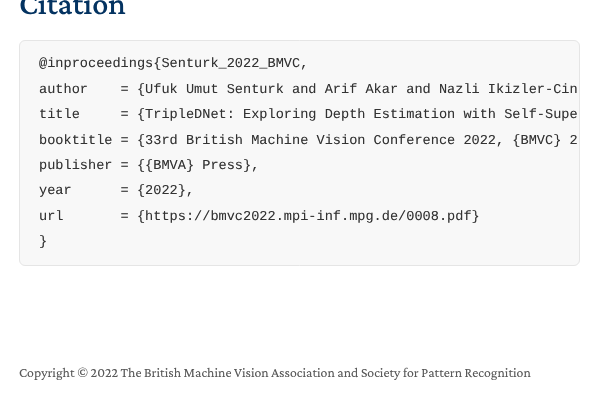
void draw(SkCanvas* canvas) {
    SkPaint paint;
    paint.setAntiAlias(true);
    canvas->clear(0xFFFFFFFF);
    SkFont font1(fontMgr->matchFamilyStyle("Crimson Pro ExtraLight", SkFontStyle(500, SkFontStyle::kNormal_Width, SkFontStyle::kUpright_Slant)), 32);
    font1.setSubpixel(true);
    paint.setColor(0xFF043361);
    canvas->drawString("Citation", 19, 14, font1, paint);
    paint.setColor(0xFFF8F8F8);
    canvas->drawRoundRect(SkRect::MakeXYWH(19.5f, 40.5f, 560, 225), 5.5f, 5.5f, paint);
    paint.setStyle(SkPaint::kStroke_Style);
    paint.setStrokeWidth(1);
    paint.setColor(0xFFE5E5E5);
    canvas->drawRoundRect(SkRect::MakeXYWH(19.5f, 40.5f, 560, 225), 5.5f, 5.5f, paint);
    SkFont font2(fontMgr->matchFamilyStyle("Liberation Mono", SkFontStyle::Normal()), 13.6f);
    font2.setSubpixel(true);
    paint.setStyle(SkPaint::kFill_Style);
    paint.setColor(0xFF333333);
    canvas->drawString("@inproceedings{Senturk_2022_BMVC,", 39, 67, font2, paint);
    canvas->drawString("author    = {Ufuk Umut Senturk and Arif Akar and Nazli Ikizler-Cin", 39, 93, font2, paint);
    canvas->drawString("title     = {TripleDNet: Exploring Depth Estimation with Self-Supe", 39, 118, font2, paint);
    canvas->drawString("booktitle = {33rd British Machine Vision Conference 2022, {BMVC} 2", 39, 144, font2, paint);
    canvas->drawString("publisher = {{BMVA} Press},", 39, 169, font2, paint);
    canvas->drawString("year      = {2022},", 39, 194, font2, paint);
    canvas->drawString("url       = {https://bmvc2022.mpi-inf.mpg.de/0008.pdf}", 39, 220, font2, paint);
    canvas->drawString("}", 39, 245, font2, paint);
    SkFont font3(fontMgr->matchFamilyStyle("Crimson Pro ExtraLight", SkFontStyle::Normal()), 13.75f);
    font3.setSubpixel(true);
    paint.setColor(0xFF595959);
    canvas->drawString("Copyright © 2022 The British Machine Vision Association and Society for Pattern Recognition", 19, 377, font3, paint);
}
